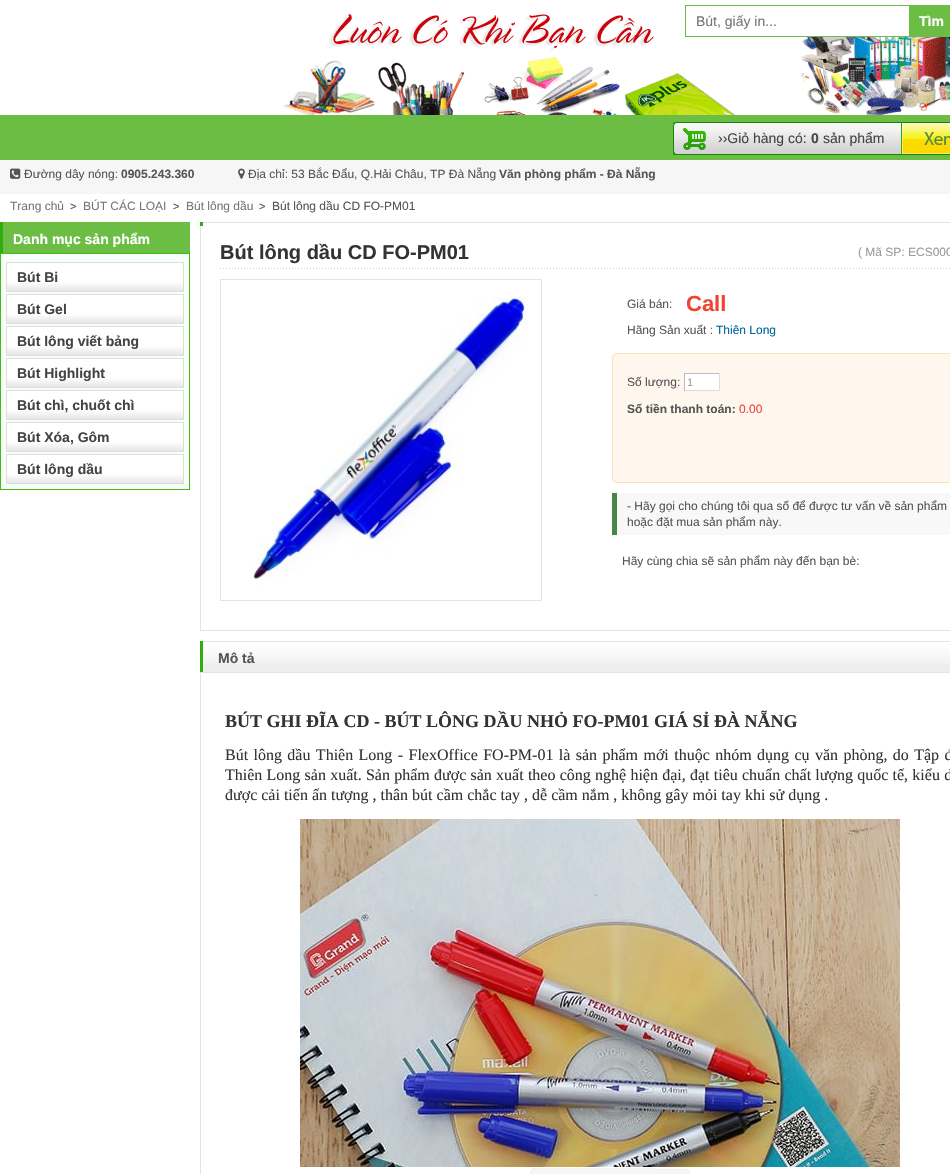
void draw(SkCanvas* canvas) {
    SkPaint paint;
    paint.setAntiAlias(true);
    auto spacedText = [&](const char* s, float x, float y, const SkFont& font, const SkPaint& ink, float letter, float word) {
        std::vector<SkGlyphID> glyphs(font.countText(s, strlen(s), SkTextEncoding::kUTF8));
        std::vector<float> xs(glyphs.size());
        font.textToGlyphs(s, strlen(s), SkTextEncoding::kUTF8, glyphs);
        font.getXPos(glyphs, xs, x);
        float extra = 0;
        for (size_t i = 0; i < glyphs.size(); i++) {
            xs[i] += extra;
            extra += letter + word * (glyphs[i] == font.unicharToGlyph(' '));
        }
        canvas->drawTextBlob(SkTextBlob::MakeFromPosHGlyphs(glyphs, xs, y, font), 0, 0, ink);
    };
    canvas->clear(0xFFFFFFFF);
    canvas->drawImageRect(SkImages::DeferredFromEncodedData(SkData::MakeFromFileName("img1.png")), SkRect::MakeXYWH(282, 14, 668, 101), SkSamplingOptions());
    paint.setColor(0xFFFFFFFF);
    canvas->drawRect(SkRect::MakeXYWH(803, 20, 106, 16), paint);
    paint.setStyle(SkPaint::kStroke_Style);
    paint.setStrokeWidth(1);
    paint.setColor(0xFF6BBD44);
    canvas->drawRect(SkRect::MakeXYWH(685.5f, 5.5f, 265, 31), paint);
    SkFont font1(fontMgr->matchFamilyStyle("Liberation Sans", SkFontStyle::Normal()), 14);
    font1.setSubpixel(true);
    paint.setStyle(SkPaint::kFill_Style);
    paint.setColor(0xFF777777);
    canvas->drawString("Bút, giấy in...", 696, 26, font1, paint);
    paint.setColor(0xFF6BBD44);
    canvas->drawRect(SkRect::MakeXYWH(909, 6, 41, 30), paint);
    SkFont font2(fontMgr->matchFamilyStyle("Liberation Sans", SkFontStyle::Bold()), 14);
    font2.setSubpixel(true);
    paint.setColor(0xFFFFFFFF);
    canvas->drawString("Tìm", 919, 26, font2, paint);
    paint.setColor(0xFF6BBD44);
    canvas->drawRect(SkRect::MakeXYWH(0, 115, 950, 45), paint);
    canvas->drawImageRect(SkImages::DeferredFromEncodedData(SkData::MakeFromFileName("img2.png")), SkRect::MakeXYWH(706, 122, 244, 33), SkSamplingOptions());
    canvas->drawImageRect(SkImages::DeferredFromEncodedData(SkData::MakeFromFileName("img3.png")), SkRect::MakeXYWH(901, 123, 49, 31), SkSamplingOptions());
    canvas->drawImageRect(SkImages::DeferredFromEncodedData(SkData::MakeFromFileName("img4.png")), SkRect::MakeXYWH(673, 122, 33, 33), SkSamplingOptions());
    paint.setColor(0xFF444444);
    canvas->drawString("››Giỏ hàng có:", 718, 143, font1, paint);
    canvas->drawString("0", 811, 143, font2, paint);
    canvas->drawString("sản phẩm", 823, 143, font1, paint);
    paint.setColor(0xFFF6F6F6);
    canvas->drawRect(SkRect::MakeXYWH(0, 160, 950, 34), paint);
    canvas->drawImageRect(SkImages::DeferredFromEncodedData(SkData::MakeFromFileName("img5.png")), SkRect::MakeXYWH(10, 168, 11, 11), SkSamplingOptions());
    SkFont font3(fontMgr->matchFamilyStyle("Liberation Sans", SkFontStyle::Normal()), 12);
    font3.setSubpixel(true);
    paint.setColor(0xFF555555);
    canvas->drawString("Đường dây nóng:", 24, 178, font3, paint);
    SkFont font4(fontMgr->matchFamilyStyle("Liberation Sans", SkFontStyle::Bold()), 12);
    font4.setSubpixel(true);
    canvas->drawString("0905.243.360", 121, 178, font4, paint);
    canvas->drawImageRect(SkImages::DeferredFromEncodedData(SkData::MakeFromFileName("img6.png")), SkRect::MakeXYWH(238, 168, 7, 11), SkSamplingOptions());
    canvas->drawString("Địa chỉ: 53 Bắc Đẩu, Q.Hải Châu, TP Đà Nẵng", 248, 178, font3, paint);
    canvas->drawString("Văn phòng phẩm - Đà Nẵng", 499, 178, font4, paint);
    paint.setColor(0xFF777777);
    canvas->drawString("Trang chủ", 10, 210, font3, paint);
    SkFont font5(fontMgr->matchFamilyStyle("Liberation Sans", SkFontStyle::Normal()), 11);
    font5.setSubpixel(true);
    paint.setColor(0xFF555555);
    canvas->drawString(">", 70, 210, font5, paint);
    paint.setColor(0xFF777777);
    canvas->drawString("BÚT CÁC LOẠI", 83, 210, font3, paint);
    paint.setColor(0xFF555555);
    canvas->drawString(">", 173, 210, font5, paint);
    paint.setColor(0xFF777777);
    canvas->drawString("Bút lông dầu", 186, 210, font3, paint);
    paint.setColor(0xFF555555);
    canvas->drawString(">", 259, 210, font5, paint);
    canvas->drawString("Bút lông dầu CD FO-PM01", 272, 210, font3, paint);
    paint.setColor(0xFF6BBD44);
    canvas->drawRect(SkRect::MakeXYWH(3, 222, 187, 31), paint);
    paint.setColor(0xFF32AB0F);
    canvas->drawRect(SkRect::MakeXYWH(0, 222, 3, 31), paint);
    paint.setColor(0xFFFFFFFF);
    canvas->drawString("Danh mục sản phẩm", 13, 244, font2, paint);
    paint.setColor(0xFFF8FFF8);
    canvas->drawRect(SkRect::MakeXYWH(0.5f, 253.5f, 189, 236), paint);
    paint.setStyle(SkPaint::kStroke_Style);
    paint.setColor(0xFF40BE14);
    canvas->drawRect(SkRect::MakeXYWH(0.5f, 253.5f, 189, 236), paint);
    paint.setStyle(SkPaint::kFill_Style);
    paint.setColor(0xFFFFFFFF);
    canvas->drawRect(SkRect::MakeXYWH(7, 263, 176, 20), paint);
    canvas->drawImageRect(SkImages::DeferredFromEncodedData(SkData::MakeFromFileName("img7.png")), SkRect::MakeXYWH(7, 283, 176, 8), SkSamplingOptions());
    paint.setStyle(SkPaint::kStroke_Style);
    paint.setColor(0xFFDDDDDD);
    canvas->drawRect(SkRect::MakeXYWH(6.5f, 262.5f, 177, 29), paint);
    paint.setStyle(SkPaint::kFill_Style);
    paint.setColor(0xFF444444);
    canvas->drawString("Bút Bi", 17, 282, font2, paint);
    paint.setColor(0xFFFFFFFF);
    canvas->drawRect(SkRect::MakeXYWH(7, 295, 176, 20), paint);
    canvas->drawImageRect(SkImages::DeferredFromEncodedData(SkData::MakeFromFileName("img7.png")), SkRect::MakeXYWH(7, 315, 176, 8), SkSamplingOptions());
    paint.setStyle(SkPaint::kStroke_Style);
    paint.setColor(0xFFDDDDDD);
    canvas->drawRect(SkRect::MakeXYWH(6.5f, 294.5f, 177, 29), paint);
    paint.setStyle(SkPaint::kFill_Style);
    paint.setColor(0xFF444444);
    canvas->drawString("Bút Gel", 17, 314, font2, paint);
    paint.setColor(0xFFFFFFFF);
    canvas->drawRect(SkRect::MakeXYWH(7, 327, 176, 20), paint);
    canvas->drawImageRect(SkImages::DeferredFromEncodedData(SkData::MakeFromFileName("img7.png")), SkRect::MakeXYWH(7, 347, 176, 8), SkSamplingOptions());
    paint.setStyle(SkPaint::kStroke_Style);
    paint.setColor(0xFFDDDDDD);
    canvas->drawRect(SkRect::MakeXYWH(6.5f, 326.5f, 177, 29), paint);
    paint.setStyle(SkPaint::kFill_Style);
    paint.setColor(0xFF444444);
    canvas->drawString("Bút lông viết bảng", 17, 346, font2, paint);
    paint.setColor(0xFFFFFFFF);
    canvas->drawRect(SkRect::MakeXYWH(7, 359, 176, 20), paint);
    canvas->drawImageRect(SkImages::DeferredFromEncodedData(SkData::MakeFromFileName("img7.png")), SkRect::MakeXYWH(7, 379, 176, 8), SkSamplingOptions());
    paint.setStyle(SkPaint::kStroke_Style);
    paint.setColor(0xFFDDDDDD);
    canvas->drawRect(SkRect::MakeXYWH(6.5f, 358.5f, 177, 29), paint);
    paint.setStyle(SkPaint::kFill_Style);
    paint.setColor(0xFF444444);
    canvas->drawString("Bút Highlight", 17, 378, font2, paint);
    paint.setColor(0xFFFFFFFF);
    canvas->drawRect(SkRect::MakeXYWH(7, 391, 176, 20), paint);
    canvas->drawImageRect(SkImages::DeferredFromEncodedData(SkData::MakeFromFileName("img7.png")), SkRect::MakeXYWH(7, 411, 176, 8), SkSamplingOptions());
    paint.setStyle(SkPaint::kStroke_Style);
    paint.setColor(0xFFDDDDDD);
    canvas->drawRect(SkRect::MakeXYWH(6.5f, 390.5f, 177, 29), paint);
    paint.setStyle(SkPaint::kFill_Style);
    paint.setColor(0xFF444444);
    canvas->drawString("Bút chì, chuốt chì", 17, 410, font2, paint);
    paint.setColor(0xFFFFFFFF);
    canvas->drawRect(SkRect::MakeXYWH(7, 423, 176, 20), paint);
    canvas->drawImageRect(SkImages::DeferredFromEncodedData(SkData::MakeFromFileName("img7.png")), SkRect::MakeXYWH(7, 443, 176, 8), SkSamplingOptions());
    paint.setStyle(SkPaint::kStroke_Style);
    paint.setColor(0xFFDDDDDD);
    canvas->drawRect(SkRect::MakeXYWH(6.5f, 422.5f, 177, 29), paint);
    paint.setStyle(SkPaint::kFill_Style);
    paint.setColor(0xFF444444);
    canvas->drawString("Bút Xóa, Gôm", 17, 442, font2, paint);
    paint.setColor(0xFFFFFFFF);
    canvas->drawRect(SkRect::MakeXYWH(7, 455, 176, 20), paint);
    canvas->drawImageRect(SkImages::DeferredFromEncodedData(SkData::MakeFromFileName("img7.png")), SkRect::MakeXYWH(7, 475, 176, 8), SkSamplingOptions());
    paint.setStyle(SkPaint::kStroke_Style);
    paint.setColor(0xFFDDDDDD);
    canvas->drawRect(SkRect::MakeXYWH(6.5f, 454.5f, 177, 29), paint);
    paint.setStyle(SkPaint::kFill_Style);
    paint.setColor(0xFF444444);
    canvas->drawString("Bút lông dầu", 17, 474, font2, paint);
    paint.setColor(0xFFE4E4E4);
    canvas->drawRect(SkRect::MakeXYWH(200, 222, 750, 1), paint);
    paint.setColor(0xFF32AB0F);
    canvas->drawRect(SkRect::MakeXYWH(200, 222, 3, 4), paint);
    paint.setColor(0xFFE4E4E4);
    canvas->drawRect(SkRect::MakeXYWH(200, 630, 750, 1), paint);
    canvas->drawRect(SkRect::MakeXYWH(200, 226, 1, 405), paint);
    canvas->drawImageRect(SkImages::DeferredFromEncodedData(SkData::MakeFromFileName("img8.png")), SkRect::MakeXYWH(220, 268, 730, 1), SkSamplingOptions());
    SkFont font6(fontMgr->matchFamilyStyle("Liberation Sans", SkFontStyle::Bold()), 20);
    font6.setSubpixel(true);
    paint.setColor(0xFF333333);
    canvas->drawString("Bút lông dầu CD FO-PM01", 220, 259, font6, paint);
    paint.setColor(0xFF999999);
    canvas->drawString("( Mã SP: ECS000", 858, 256, font3, paint);
    paint.setStyle(SkPaint::kStroke_Style);
    paint.setColor(0xFFE4E4E4);
    canvas->drawRect(SkRect::MakeXYWH(220.5f, 279.5f, 321, 321), paint);
    canvas->drawImageRect(SkImages::DeferredFromEncodedData(SkData::MakeFromFileName("img9.png")), SkRect::MakeXYWH(250, 297, 278, 290), SkSamplingOptions());
    paint.setStyle(SkPaint::kFill_Style);
    paint.setColor(0xFF555555);
    canvas->drawString("Giá bán:", 627, 308, font3, paint);
    SkFont font7(fontMgr->matchFamilyStyle("Liberation Sans", SkFontStyle::Bold()), 22);
    font7.setSubpixel(true);
    paint.setColor(0xFFF04331);
    canvas->drawString("Call", 686, 311, font7, paint);
    paint.setColor(0xFF555555);
    canvas->drawString("Hãng Sản xuất :", 627, 334, font3, paint);
    paint.setColor(0xFF006699);
    canvas->drawString("Thiên Long", 716, 334, font3, paint);
    paint.setColor(0xFFFFF7EE);
    canvas->drawRoundRect(SkRect::MakeXYWH(612.5f, 353.5f, 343, 129), 4.5f, 4.5f, paint);
    paint.setStyle(SkPaint::kStroke_Style);
    paint.setColor(0xFFFFDEB9);
    canvas->drawRoundRect(SkRect::MakeXYWH(612.5f, 353.5f, 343, 129), 4.5f, 4.5f, paint);
    paint.setStyle(SkPaint::kFill_Style);
    paint.setColor(0xFF555555);
    canvas->drawString("Số lượng:", 627, 386, font3, paint);
    paint.setColor(0xFFFFFFFF);
    canvas->drawRect(SkRect::MakeXYWH(685, 374, 34, 16), paint);
    paint.setColor(0xFFBBBBBB);
    canvas->drawRect(SkRect::MakeXYWH(684, 373, 36, 1), paint);
    paint.setColor(0xFFDDDDDD);
    canvas->drawRect(SkRect::MakeXYWH(719, 373, 1, 18), paint);
    canvas->drawRect(SkRect::MakeXYWH(684, 390, 36, 1), paint);
    paint.setColor(0xFFBBBBBB);
    canvas->drawRect(SkRect::MakeXYWH(684, 373, 1, 18), paint);
    paint.setColor(0xFF999999);
    canvas->drawString("1", 687, 386, font5, paint);
    paint.setColor(0xFF555555);
    canvas->drawString("Số tiền thanh toán:", 627, 413, font4, paint);
    paint.setColor(0xFFF04331);
    canvas->drawString("0.00", 739, 413, font3, paint);
    paint.setColor(0xFFF8F8F8);
    canvas->drawRect(SkRect::MakeXYWH(617, 493, 333, 42), paint);
    paint.setColor(0xFF468847);
    canvas->drawRect(SkRect::MakeXYWH(612, 493, 5, 42), paint);
    paint.setColor(0xFF555555);
    canvas->drawString("- Hãy gọi cho chúng tôi qua số để được tư vấn về sản phẩm", 627, 510, font3, paint);
    canvas->drawString("hoặc đặt mua sản phẩm này.", 627, 526, font3, paint);
    canvas->drawString("Hãy cùng chia sẽ sản phẩm này đến bạn bè:", 622, 565, font3, paint);
    paint.setColor(0xFFEDEDED);
    canvas->drawRect(SkRect::MakeXYWH(203, 664, 747, 8), paint);
    canvas->drawImageRect(SkImages::DeferredFromEncodedData(SkData::MakeFromFileName("img10.png")), SkRect::MakeXYWH(203, 641, 747, 23), SkSamplingOptions());
    paint.setColor(0xFF32AB0F);
    canvas->drawRect(SkRect::MakeXYWH(200, 641, 3, 31), paint);
    paint.setColor(0xFF555555);
    canvas->drawString("Mô tả", 218, 663, font2, paint);
    paint.setStyle(SkPaint::kStroke_Style);
    paint.setColor(0xFFE4E4E4);
    canvas->drawRect(SkRect::MakeXYWH(200.5f, 672.5f, 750, 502), paint);
    SkFont font8(fontMgr->matchFamilyStyle("Liberation Serif", SkFontStyle::Bold()), 18);
    font8.setSubpixel(true);
    paint.setStyle(SkPaint::kFill_Style);
    paint.setColor(0xFF333333);
    canvas->drawString("BÚT GHI ĐĨA CD - BÚT LÔNG DẦU NHỎ FO-PM01 GIÁ SỈ ĐÀ NẴNG", 225, 727, font8, paint);
    SkFont font9(fontMgr->matchFamilyStyle("Liberation Serif", SkFontStyle::Normal()), 16);
    font9.setSubpixel(true);
    spacedText("Bút lông dầu Thiên Long - FlexOffice FO-PM-01 là sản phẩm mới thuộc nhóm dụng cụ văn phòng, do Tập đ", 225, 760, font9, paint, 0, 1.4f);
    spacedText("Thiên Long sản xuất. Sản phẩm được sản xuất theo công nghệ hiện đại, đạt tiêu chuẩn chất lượng quốc tế, kiểu d", 225, 780, font9, paint, 0, 0.25f);
    canvas->drawString("được cải tiến ấn tượng , thân bút cầm chắc tay , dễ cầm nắm , không gây mỏi tay khi sử dụng .", 225, 800, font9, paint);
    canvas->drawImageRect(SkImages::DeferredFromEncodedData(SkData::MakeFromFileName("img11.png")), SkRect::MakeXYWH(300, 819, 600, 348), SkSamplingOptions());
    paint.setColor(0xFFF6F6F6);
    canvas->drawPath(SkPathBuilder().moveTo(535, 1168).lineTo(657, 1168).lineTo(657, 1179).lineTo(535, 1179).cubicTo(532, 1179, 530, 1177, 530, 1174).lineTo(530, 1173).cubicTo(530, 1170, 532, 1168, 535, 1168).close().detach(), paint);
    paint.setColor(0xFFF1F1F1);
    canvas->drawPath(SkPathBuilder(SkPathFillType::kEvenOdd).moveTo(535, 1168).lineTo(657, 1168).lineTo(657, 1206).lineTo(535, 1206).cubicTo(532, 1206, 530, 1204, 530, 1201).lineTo(530, 1173).cubicTo(530, 1170, 532, 1168, 535, 1168).close().moveTo(535, 1169).lineTo(657, 1169).lineTo(657, 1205).lineTo(535, 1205).cubicTo(533, 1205, 531, 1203, 531, 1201).lineTo(531, 1173).cubicTo(531, 1171, 533, 1169, 535, 1169).close().detach(), paint);
    paint.setColor(0xFFF6F6F6);
    canvas->drawPath(SkPathBuilder().moveTo(657, 1169).lineTo(685, 1169).cubicTo(688, 1169, 690, 1171, 690, 1174).cubicTo(690, 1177, 688, 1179, 685, 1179).lineTo(657, 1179).close().detach(), paint);
    paint.setColor(0xFFF1F1F1);
    canvas->drawPath(SkPathBuilder(SkPathFillType::kEvenOdd).moveTo(657, 1169).lineTo(685, 1169).cubicTo(688, 1169, 690, 1171, 690, 1174).lineTo(690, 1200).cubicTo(690, 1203, 688, 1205, 685, 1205).lineTo(657, 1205).close().moveTo(657, 1170).lineTo(685, 1170).cubicTo(687, 1170, 689, 1172, 689, 1174).lineTo(689, 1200).cubicTo(689, 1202, 687, 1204, 685, 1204).lineTo(657, 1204).close().detach(), paint);
}
